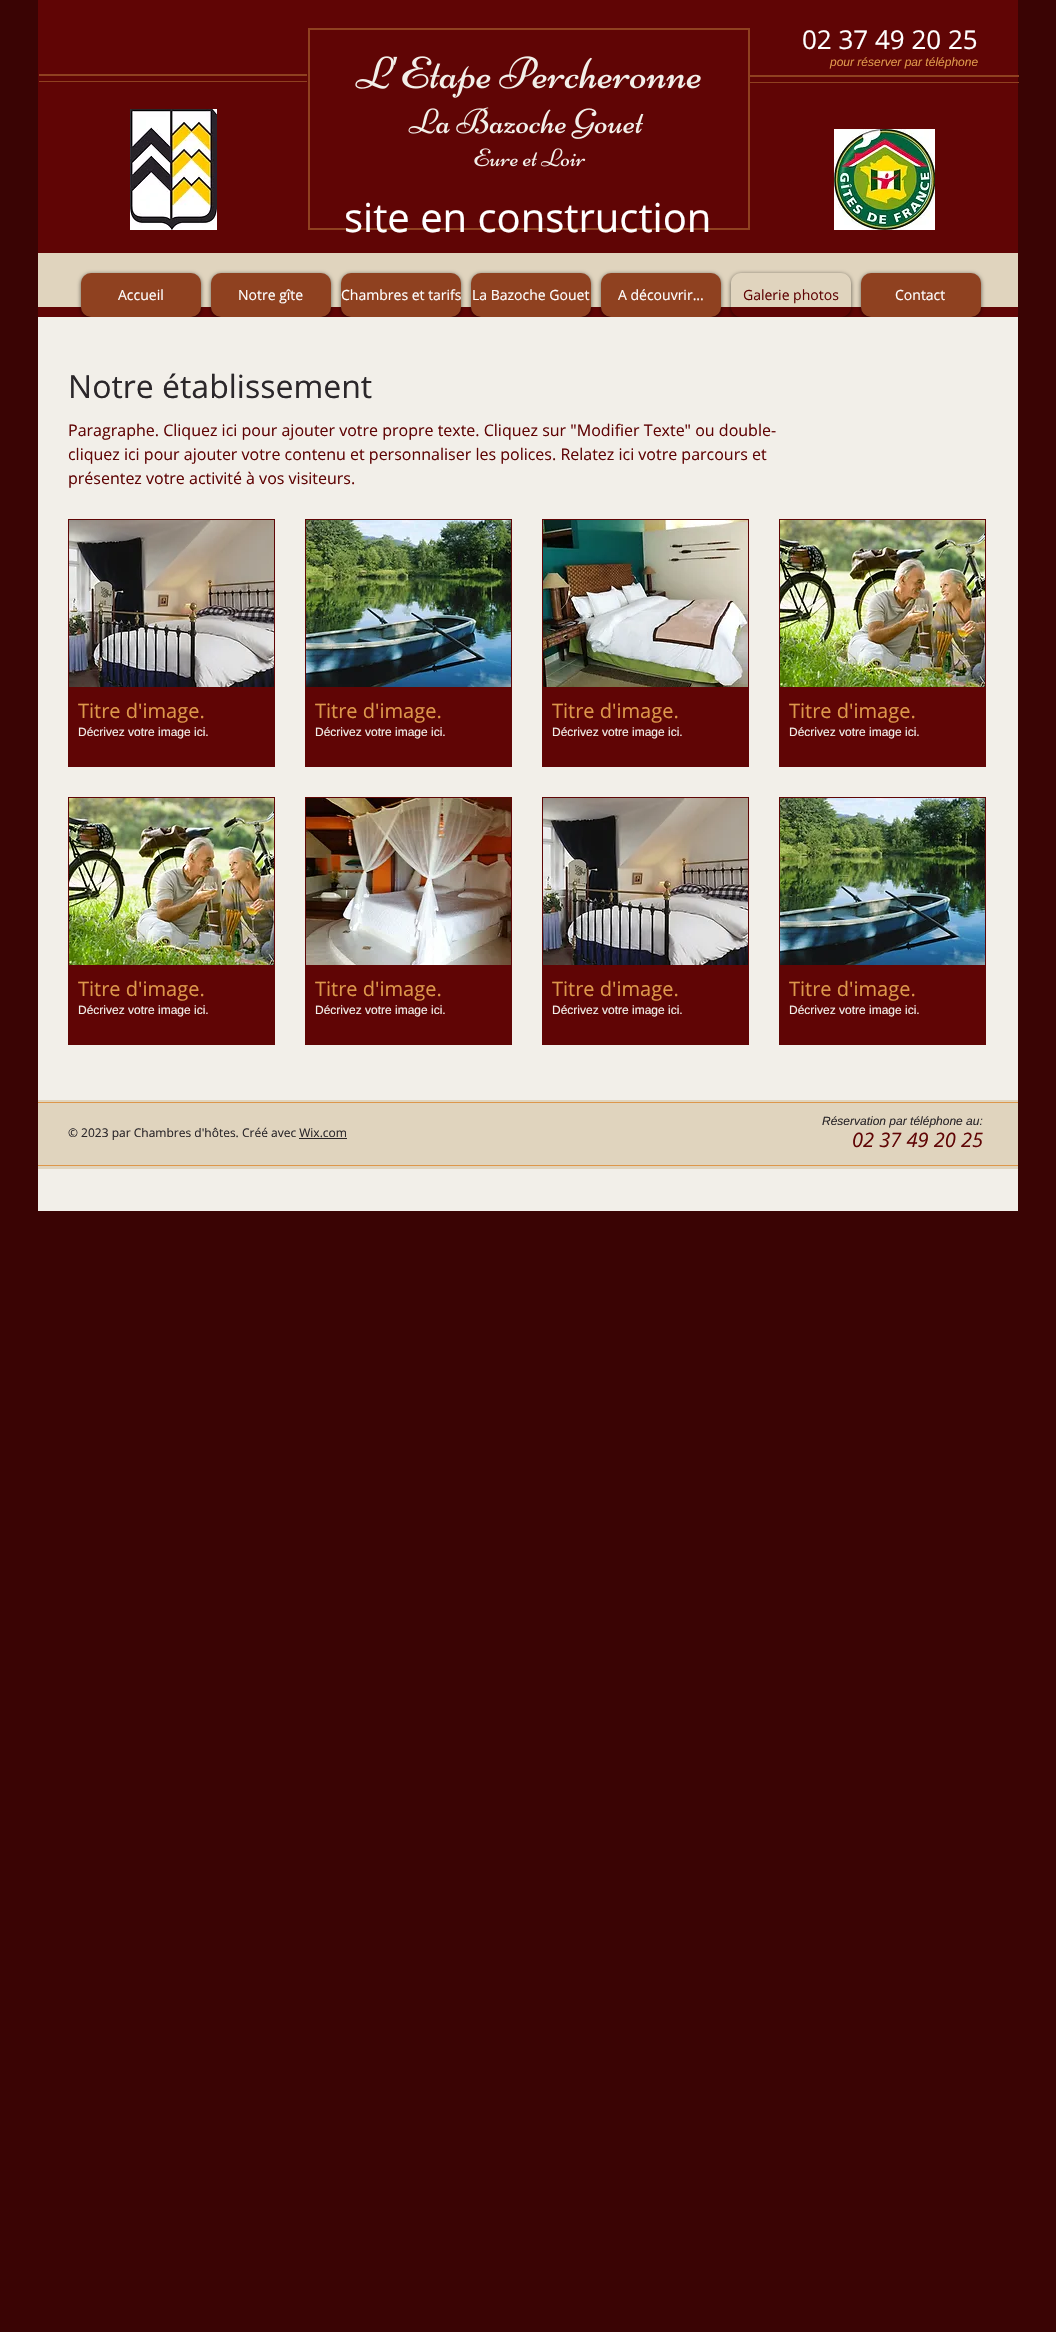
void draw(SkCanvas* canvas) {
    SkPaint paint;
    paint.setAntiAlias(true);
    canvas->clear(0xFF3A0404);
    paint.setColor(0xFF600505);
    canvas->drawRect(SkRect::MakeXYWH(38, 0, 980, 317), paint);
    paint.setStyle(SkPaint::kStroke_Style);
    paint.setStrokeWidth(2);
    paint.setColor(0xFF8F4120);
    canvas->drawRect(SkRect::MakeXYWH(309, 29, 440, 200), paint);
    canvas->drawImageRect(SkImages::DeferredFromEncodedData(SkData::MakeFromFileName("img1.png")), SkRect::MakeXYWH(355, 56, 346, 42), SkSamplingOptions());
    canvas->drawImageRect(SkImages::DeferredFromEncodedData(SkData::MakeFromFileName("img2.png")), SkRect::MakeXYWH(408, 107, 236, 32), SkSamplingOptions());
    canvas->drawImageRect(SkImages::DeferredFromEncodedData(SkData::MakeFromFileName("img3.png")), SkRect::MakeXYWH(474, 148, 112, 19), SkSamplingOptions());
    SkFont font1(fontMgr->matchFamilyStyle("Open Sans", SkFontStyle::Normal()), 26);
    font1.setSubpixel(true);
    paint.setStyle(SkPaint::kFill_Style);
    paint.setColor(0xFFFFFFFF);
    canvas->drawString("02 37 49 20 25", 802, 49, font1, paint);
    SkFont font2(fontMgr->matchFamilyStyle("Liberation Sans", SkFontStyle::Italic()), 12);
    font2.setSubpixel(true);
    paint.setColor(0xFFDD974B);
    canvas->drawString("pour réserver par téléphone", 830, 66, font2, paint);
    paint.setColor(0xFF8F4120);
    canvas->drawRect(SkRect::MakeXYWH(39, 74, 268, 2), paint);
    canvas->drawRect(SkRect::MakeXYWH(39, 81, 268, 1), paint);
    canvas->drawRect(SkRect::MakeXYWH(750, 75, 269, 2), paint);
    canvas->drawRect(SkRect::MakeXYWH(750, 82, 269, 1), paint);
    canvas->drawImageRect(SkImages::DeferredFromEncodedData(SkData::MakeFromFileName("img4.png")), SkRect::MakeXYWH(130, 109, 87, 121), SkSamplingOptions());
    SkFont font3(fontMgr->matchFamilyStyle("Open Sans", SkFontStyle::Normal()), 40);
    font3.setSubpixel(true);
    paint.setColor(0xFFFFFFFF);
    canvas->drawString("site en construction", 344, 232, font3, paint);
    canvas->drawImageRect(SkImages::DeferredFromEncodedData(SkData::MakeFromFileName("img5.png")), SkRect::MakeXYWH(834, 129, 101, 101), SkSamplingOptions());
    paint.setColor(0xFFE0D4BE);
    canvas->drawRect(SkRect::MakeXYWH(38, 253, 980, 54), paint);
    paint.setColor(0x99000000);
    paint.setMaskFilter(SkMaskFilter::MakeBlur(kNormal_SkBlurStyle, 2));
    canvas->drawRoundRect(SkRect::MakeXYWH(81, 274, 120, 44), 10, 10, paint);
    paint.setMaskFilter(nullptr);
    paint.setColor(0xFF8F4120);
    canvas->drawRoundRect(SkRect::MakeXYWH(81, 273, 120, 44), 10, 10, paint);
    SkFont font4(fontMgr->matchFamilyStyle("Open Sans", SkFontStyle::Normal()), 14);
    font4.setSubpixel(true);
    paint.setColor(0xFFFFFFFF);
    canvas->drawString("Accueil", 118, 300, font4, paint);
    paint.setColor(0x99000000);
    paint.setMaskFilter(SkMaskFilter::MakeBlur(kNormal_SkBlurStyle, 2));
    canvas->drawRoundRect(SkRect::MakeXYWH(211, 274, 120, 44), 10, 10, paint);
    paint.setMaskFilter(nullptr);
    paint.setColor(0xFF8F4120);
    canvas->drawRoundRect(SkRect::MakeXYWH(211, 273, 120, 44), 10, 10, paint);
    paint.setColor(0xFFFFFFFF);
    canvas->drawString("Notre gîte", 238, 300, font4, paint);
    paint.setColor(0x99000000);
    paint.setMaskFilter(SkMaskFilter::MakeBlur(kNormal_SkBlurStyle, 2));
    canvas->drawRoundRect(SkRect::MakeXYWH(341, 274, 120, 44), 10, 10, paint);
    paint.setMaskFilter(nullptr);
    paint.setColor(0xFF8F4120);
    canvas->drawRoundRect(SkRect::MakeXYWH(341, 273, 120, 44), 10, 10, paint);
    paint.setColor(0xFFFFFFFF);
    canvas->drawString("Chambres et tarifs", 341, 300, font4, paint);
    paint.setColor(0x99000000);
    paint.setMaskFilter(SkMaskFilter::MakeBlur(kNormal_SkBlurStyle, 2));
    canvas->drawRoundRect(SkRect::MakeXYWH(471, 274, 120, 44), 10, 10, paint);
    paint.setMaskFilter(nullptr);
    paint.setColor(0xFF8F4120);
    canvas->drawRoundRect(SkRect::MakeXYWH(471, 273, 120, 44), 10, 10, paint);
    paint.setColor(0xFFFFFFFF);
    canvas->drawString("La Bazoche Gouet", 472, 300, font4, paint);
    paint.setColor(0x99000000);
    paint.setMaskFilter(SkMaskFilter::MakeBlur(kNormal_SkBlurStyle, 2));
    canvas->drawRoundRect(SkRect::MakeXYWH(601, 274, 120, 44), 10, 10, paint);
    paint.setMaskFilter(nullptr);
    paint.setColor(0xFF8F4120);
    canvas->drawRoundRect(SkRect::MakeXYWH(601, 273, 120, 44), 10, 10, paint);
    paint.setColor(0xFFFFFFFF);
    canvas->drawString("A découvrir...", 618, 300, font4, paint);
    canvas->save();
    canvas->clipPath(SkPathBuilder(SkPathFillType::kEvenOdd).moveTo(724, 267).lineTo(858, 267).lineTo(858, 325).lineTo(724, 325).close().moveTo(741, 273).lineTo(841, 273).cubicTo(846.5f, 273, 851, 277.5f, 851, 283).lineTo(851, 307).cubicTo(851, 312.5f, 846.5f, 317, 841, 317).lineTo(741, 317).cubicTo(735.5f, 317, 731, 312.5f, 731, 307).lineTo(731, 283).cubicTo(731, 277.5f, 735.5f, 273, 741, 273).close().detach(), true);
    paint.setColor(0x99000000);
    paint.setMaskFilter(SkMaskFilter::MakeBlur(kNormal_SkBlurStyle, 2));
    canvas->drawRoundRect(SkRect::MakeXYWH(731, 274, 120, 44), 10, 10, paint);
    paint.setMaskFilter(nullptr);
    canvas->restore();
    paint.setColor(0xFF600505);
    canvas->drawString("Galerie photos", 743, 300, font4, paint);
    paint.setColor(0x99000000);
    paint.setMaskFilter(SkMaskFilter::MakeBlur(kNormal_SkBlurStyle, 2));
    canvas->drawRoundRect(SkRect::MakeXYWH(861, 274, 120, 44), 10, 10, paint);
    paint.setMaskFilter(nullptr);
    paint.setColor(0xFF8F4120);
    canvas->drawRoundRect(SkRect::MakeXYWH(861, 273, 120, 44), 10, 10, paint);
    paint.setColor(0xFFFFFFFF);
    canvas->drawString("Contact", 895, 300, font4, paint);
    paint.setColor(0xFFF2EFE9);
    canvas->drawRect(SkRect::MakeXYWH(38, 317, 980, 894), paint);
    SkFont font5(fontMgr->matchFamilyStyle("Open Sans", SkFontStyle::Normal()), 32);
    font5.setSubpixel(true);
    paint.setColor(0xFF2B272A);
    canvas->drawString("Notre établissement", 68, 398, font5, paint);
    SkFont font6(fontMgr->matchFamilyStyle("Open Sans", SkFontStyle::Normal()), 16);
    font6.setSubpixel(true);
    paint.setColor(0xFF600505);
    canvas->drawString("Paragraphe. Cliquez ici pour ajouter votre propre texte. Cliquez sur \"Modifier Texte\" ou double-", 68, 436, font6, paint);
    canvas->drawString("cliquez ici pour ajouter votre contenu et personnaliser les polices. Relatez ici votre parcours et", 68, 460, font6, paint);
    canvas->drawString("présentez votre activité à vos visiteurs.", 68, 484, font6, paint);
    canvas->drawRect(SkRect::MakeXYWH(68, 519, 207, 248), paint);
    canvas->drawImageRect(SkImages::DeferredFromEncodedData(SkData::MakeFromFileName("img6.png")), SkRect::MakeXYWH(69, 520, 205, 167), SkSamplingOptions());
    SkFont font7(fontMgr->matchFamilyStyle("Open Sans", SkFontStyle::Normal()), 20);
    font7.setSubpixel(true);
    paint.setColor(0xFFDD974B);
    canvas->drawString("Titre d'image.", 78, 718, font7, paint);
    SkFont font8(fontMgr->matchFamilyStyle("Liberation Sans", SkFontStyle::Normal()), 12);
    font8.setSubpixel(true);
    paint.setColor(0xFFF2EFE9);
    canvas->drawString("Décrivez votre image ici.", 78, 736, font8, paint);
    paint.setColor(0xFF600505);
    canvas->drawRect(SkRect::MakeXYWH(305, 519, 207, 248), paint);
    canvas->drawImageRect(SkImages::DeferredFromEncodedData(SkData::MakeFromFileName("img7.png")), SkRect::MakeXYWH(306, 520, 205, 167), SkSamplingOptions());
    paint.setColor(0xFFDD974B);
    canvas->drawString("Titre d'image.", 315, 718, font7, paint);
    paint.setColor(0xFFF2EFE9);
    canvas->drawString("Décrivez votre image ici.", 315, 736, font8, paint);
    paint.setColor(0xFF600505);
    canvas->drawRect(SkRect::MakeXYWH(542, 519, 207, 248), paint);
    canvas->drawImageRect(SkImages::DeferredFromEncodedData(SkData::MakeFromFileName("img8.png")), SkRect::MakeXYWH(543, 520, 205, 167), SkSamplingOptions());
    paint.setColor(0xFFDD974B);
    canvas->drawString("Titre d'image.", 552, 718, font7, paint);
    paint.setColor(0xFFF2EFE9);
    canvas->drawString("Décrivez votre image ici.", 552, 736, font8, paint);
    paint.setColor(0xFF600505);
    canvas->drawRect(SkRect::MakeXYWH(779, 519, 207, 248), paint);
    canvas->drawImageRect(SkImages::DeferredFromEncodedData(SkData::MakeFromFileName("img9.png")), SkRect::MakeXYWH(780, 520, 205, 167), SkSamplingOptions());
    paint.setColor(0xFFDD974B);
    canvas->drawString("Titre d'image.", 789, 718, font7, paint);
    paint.setColor(0xFFF2EFE9);
    canvas->drawString("Décrivez votre image ici.", 789, 736, font8, paint);
    paint.setColor(0xFF600505);
    canvas->drawRect(SkRect::MakeXYWH(68, 797, 207, 248), paint);
    canvas->drawImageRect(SkImages::DeferredFromEncodedData(SkData::MakeFromFileName("img9.png")), SkRect::MakeXYWH(69, 798, 205, 167), SkSamplingOptions());
    paint.setColor(0xFFDD974B);
    canvas->drawString("Titre d'image.", 78, 996, font7, paint);
    paint.setColor(0xFFF2EFE9);
    canvas->drawString("Décrivez votre image ici.", 78, 1014, font8, paint);
    paint.setColor(0xFF600505);
    canvas->drawRect(SkRect::MakeXYWH(305, 797, 207, 248), paint);
    canvas->drawImageRect(SkImages::DeferredFromEncodedData(SkData::MakeFromFileName("img10.png")), SkRect::MakeXYWH(306, 798, 205, 167), SkSamplingOptions());
    paint.setColor(0xFFDD974B);
    canvas->drawString("Titre d'image.", 315, 996, font7, paint);
    paint.setColor(0xFFF2EFE9);
    canvas->drawString("Décrivez votre image ici.", 315, 1014, font8, paint);
    paint.setColor(0xFF600505);
    canvas->drawRect(SkRect::MakeXYWH(542, 797, 207, 248), paint);
    canvas->drawImageRect(SkImages::DeferredFromEncodedData(SkData::MakeFromFileName("img6.png")), SkRect::MakeXYWH(543, 798, 205, 167), SkSamplingOptions());
    paint.setColor(0xFFDD974B);
    canvas->drawString("Titre d'image.", 552, 996, font7, paint);
    paint.setColor(0xFFF2EFE9);
    canvas->drawString("Décrivez votre image ici.", 552, 1014, font8, paint);
    paint.setColor(0xFF600505);
    canvas->drawRect(SkRect::MakeXYWH(779, 797, 207, 248), paint);
    canvas->drawImageRect(SkImages::DeferredFromEncodedData(SkData::MakeFromFileName("img7.png")), SkRect::MakeXYWH(780, 798, 205, 167), SkSamplingOptions());
    paint.setColor(0xFFDD974B);
    canvas->drawString("Titre d'image.", 789, 996, font7, paint);
    paint.setColor(0xFFF2EFE9);
    canvas->drawString("Décrivez votre image ici.", 789, 1014, font8, paint);
    paint.setColor(0xFFE0D4BE);
    canvas->drawRect(SkRect::MakeXYWH(38, 1100, 980, 69), paint);
    paint.setColor(0xFFDD974B);
    canvas->drawRect(SkRect::MakeXYWH(38, 1102, 980, 1), paint);
    SkFont font9(fontMgr->matchFamilyStyle("Open Sans", SkFontStyle::Normal()), 12);
    font9.setSubpixel(true);
    paint.setColor(0xFF2B272A);
    canvas->drawString("© 2023 par Chambres d'hôtes. Créé avec Wix.com", 68, 1137, font9, paint);
    canvas->drawRect(SkRect::MakeXYWH(299, 1138, 48, 1), paint);
    canvas->drawString("Réservation par téléphone au:", 822, 1125, font2, paint);
    SkFont font10(fontMgr->matchFamilyStyle("Open Sans", SkFontStyle::Italic()), 20);
    font10.setSubpixel(true);
    paint.setColor(0xFF600505);
    canvas->drawString("02 37 49 20 25", 852, 1147, font10, paint);
    paint.setColor(0xFFDD974B);
    canvas->drawRect(SkRect::MakeXYWH(38, 1165, 980, 1), paint);
}
